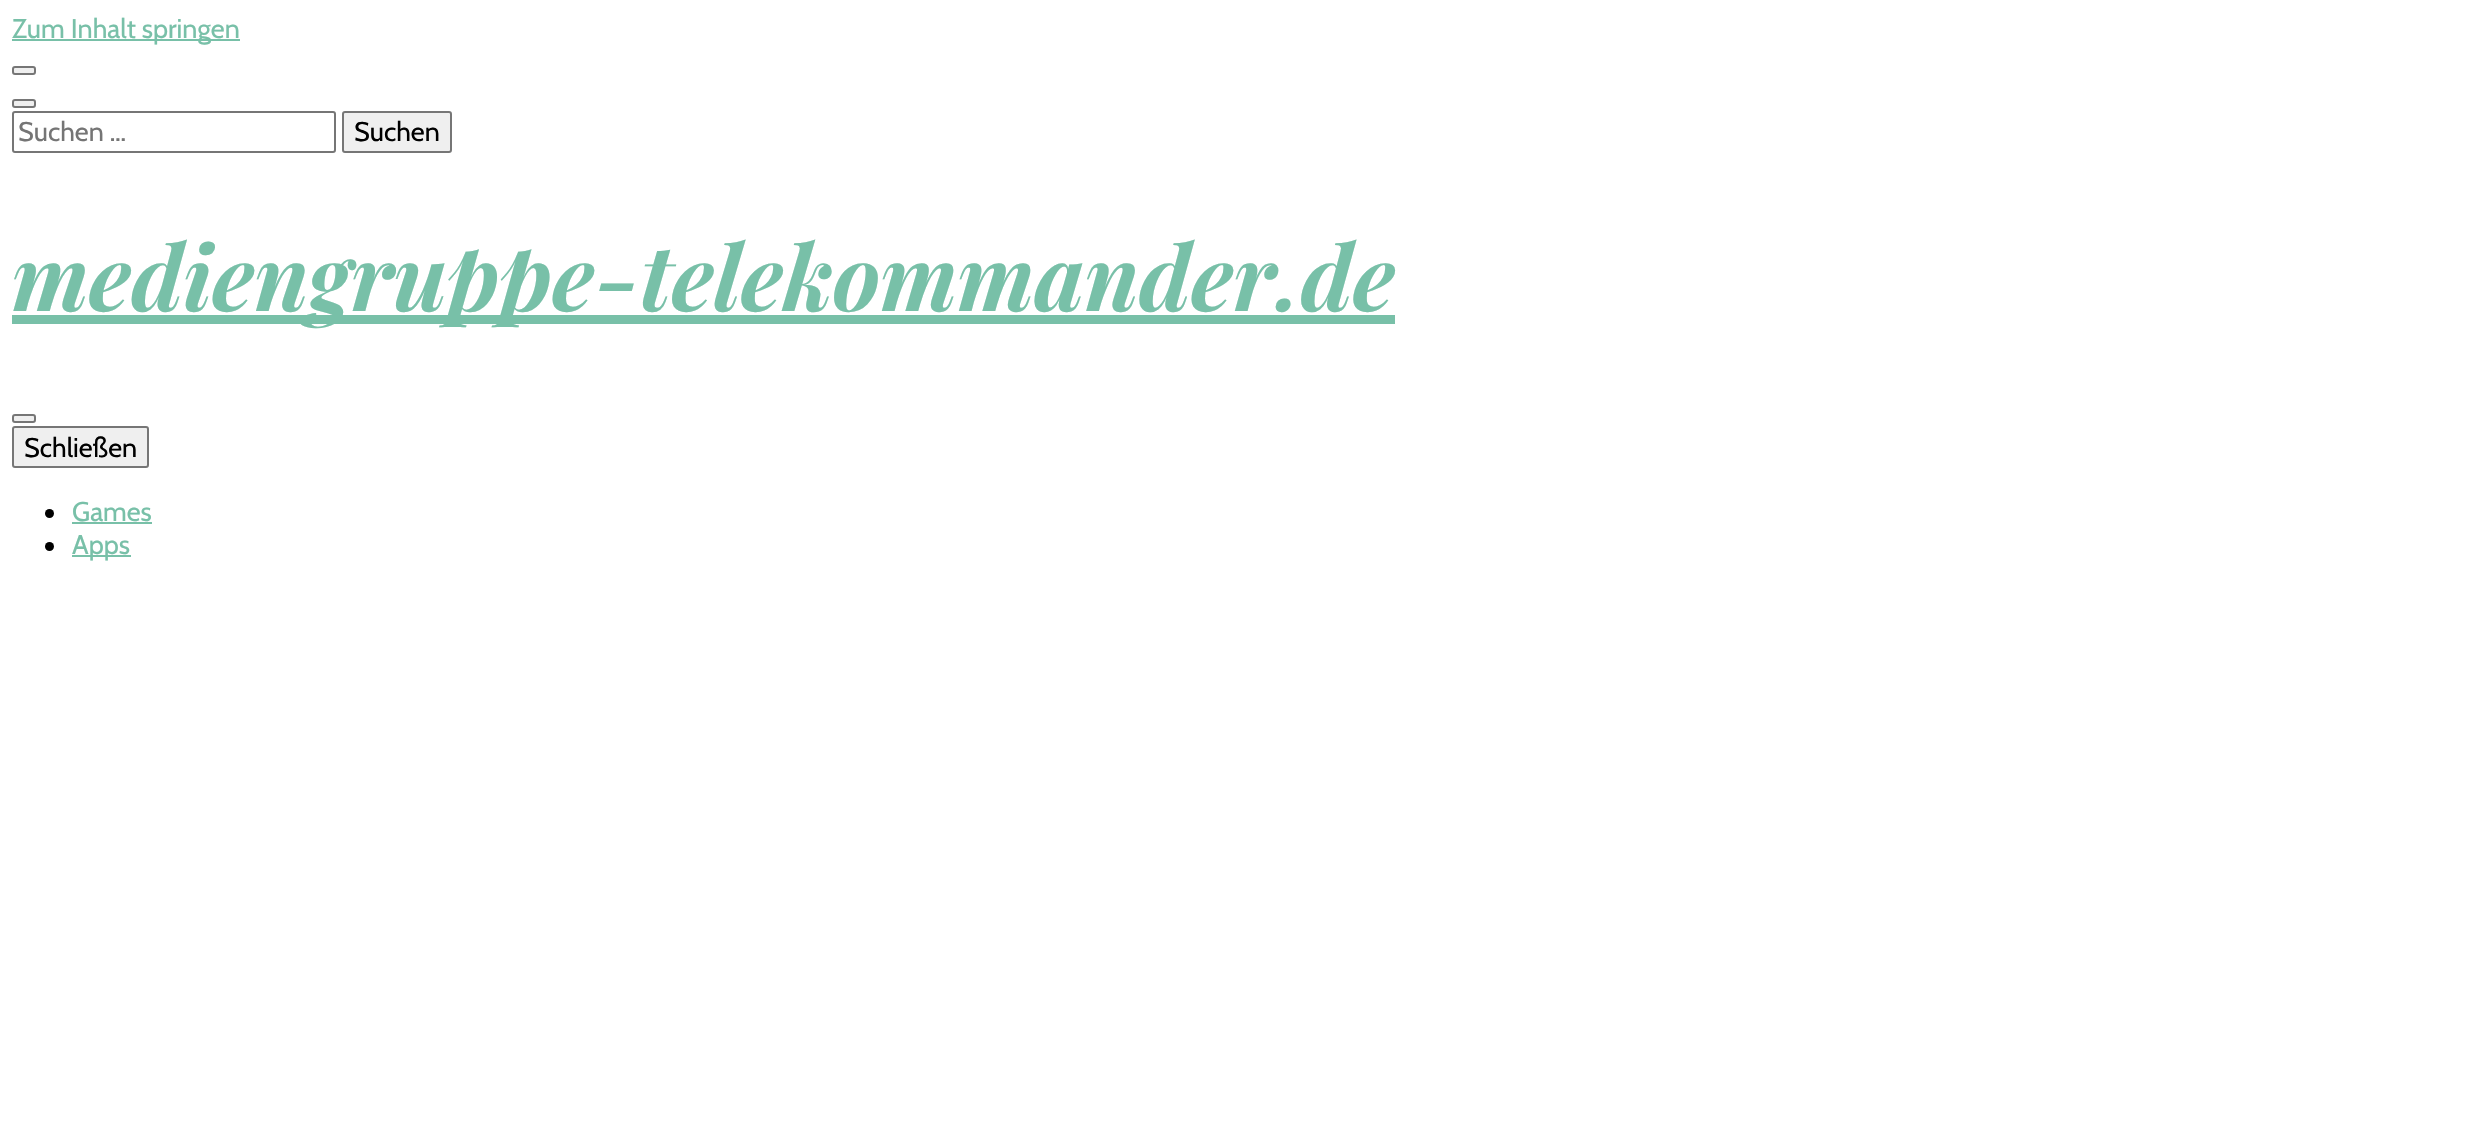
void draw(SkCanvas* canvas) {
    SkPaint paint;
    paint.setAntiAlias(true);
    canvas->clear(0xFFFFFFFF);
    paint.setColor(0xFF78C0A8);
    canvas->drawRect(SkRect::MakeXYWH(12, 39, 228, 2), paint);
    SkFont font1(fontMgr->matchFamilyStyle("Cabin", SkFontStyle::Normal()), 27);
    font1.setSubpixel(true);
    canvas->drawString("Zum Inhalt springen", 12, 38, font1, paint);
    paint.setColor(0xFFEFEFEF);
    canvas->drawRoundRect(SkRect::MakeXYWH(13, 67, 22, 7), 2, 2, paint);
    paint.setStyle(SkPaint::kStroke_Style);
    paint.setStrokeWidth(2);
    paint.setColor(0xFF767676);
    canvas->drawRoundRect(SkRect::MakeXYWH(13, 67, 22, 7), 2, 2, paint);
    paint.setStyle(SkPaint::kFill_Style);
    paint.setColor(0xFFEFEFEF);
    canvas->drawRoundRect(SkRect::MakeXYWH(13, 100, 22, 7), 2, 2, paint);
    paint.setStyle(SkPaint::kStroke_Style);
    paint.setColor(0xFF767676);
    canvas->drawRoundRect(SkRect::MakeXYWH(13, 100, 22, 7), 2, 2, paint);
    canvas->drawRoundRect(SkRect::MakeXYWH(13, 112, 322, 40), 2, 2, paint);
    paint.setStyle(SkPaint::kFill_Style);
    paint.setColor(0xFF757575);
    canvas->drawString("Suchen …", 18, 141, font1, paint);
    paint.setColor(0xFFEFEFEF);
    canvas->drawRoundRect(SkRect::MakeXYWH(343, 112, 108, 40), 2, 2, paint);
    paint.setStyle(SkPaint::kStroke_Style);
    paint.setColor(0xFF767676);
    canvas->drawRoundRect(SkRect::MakeXYWH(343, 112, 108, 40), 2, 2, paint);
    paint.setStyle(SkPaint::kFill_Style);
    paint.setColor(0xFF000000);
    canvas->drawString("Suchen", 354, 141, font1, paint);
    paint.setColor(0xFF78C0A8);
    canvas->drawRect(SkRect::MakeXYWH(12, 315, 1383, 9), paint);
    SkFont font2(fontMgr->matchFamilyStyle("Playfair Display", SkFontStyle::BoldItalic()), 90);
    font2.setSubpixel(true);
    canvas->drawString("mediengruppe-telekommander.de", 12, 311, font2, paint);
    paint.setColor(0xFFEFEFEF);
    canvas->drawRoundRect(SkRect::MakeXYWH(13, 415, 22, 7), 2, 2, paint);
    paint.setStyle(SkPaint::kStroke_Style);
    paint.setColor(0xFF767676);
    canvas->drawRoundRect(SkRect::MakeXYWH(13, 415, 22, 7), 2, 2, paint);
    paint.setStyle(SkPaint::kFill_Style);
    paint.setColor(0xFFEFEFEF);
    canvas->drawRoundRect(SkRect::MakeXYWH(13, 427, 135, 40), 2, 2, paint);
    paint.setStyle(SkPaint::kStroke_Style);
    paint.setColor(0xFF767676);
    canvas->drawRoundRect(SkRect::MakeXYWH(13, 427, 135, 40), 2, 2, paint);
    paint.setStyle(SkPaint::kFill_Style);
    paint.setColor(0xFF000000);
    canvas->drawString("Schließen", 24, 457, font1, paint);
    canvas->drawCircle(49.5f, 513.5f, 4.5f, paint);
    paint.setColor(0xFF78C0A8);
    canvas->drawString("Games", 72, 521, font1, paint);
    canvas->drawRect(SkRect::MakeXYWH(72, 522, 80, 2), paint);
    paint.setColor(0xFF000000);
    canvas->drawCircle(49.5f, 546.5f, 4.5f, paint);
    paint.setColor(0xFF78C0A8);
    canvas->drawRect(SkRect::MakeXYWH(72, 555, 59, 2), paint);
    canvas->drawString("Apps", 72, 554, font1, paint);
}
